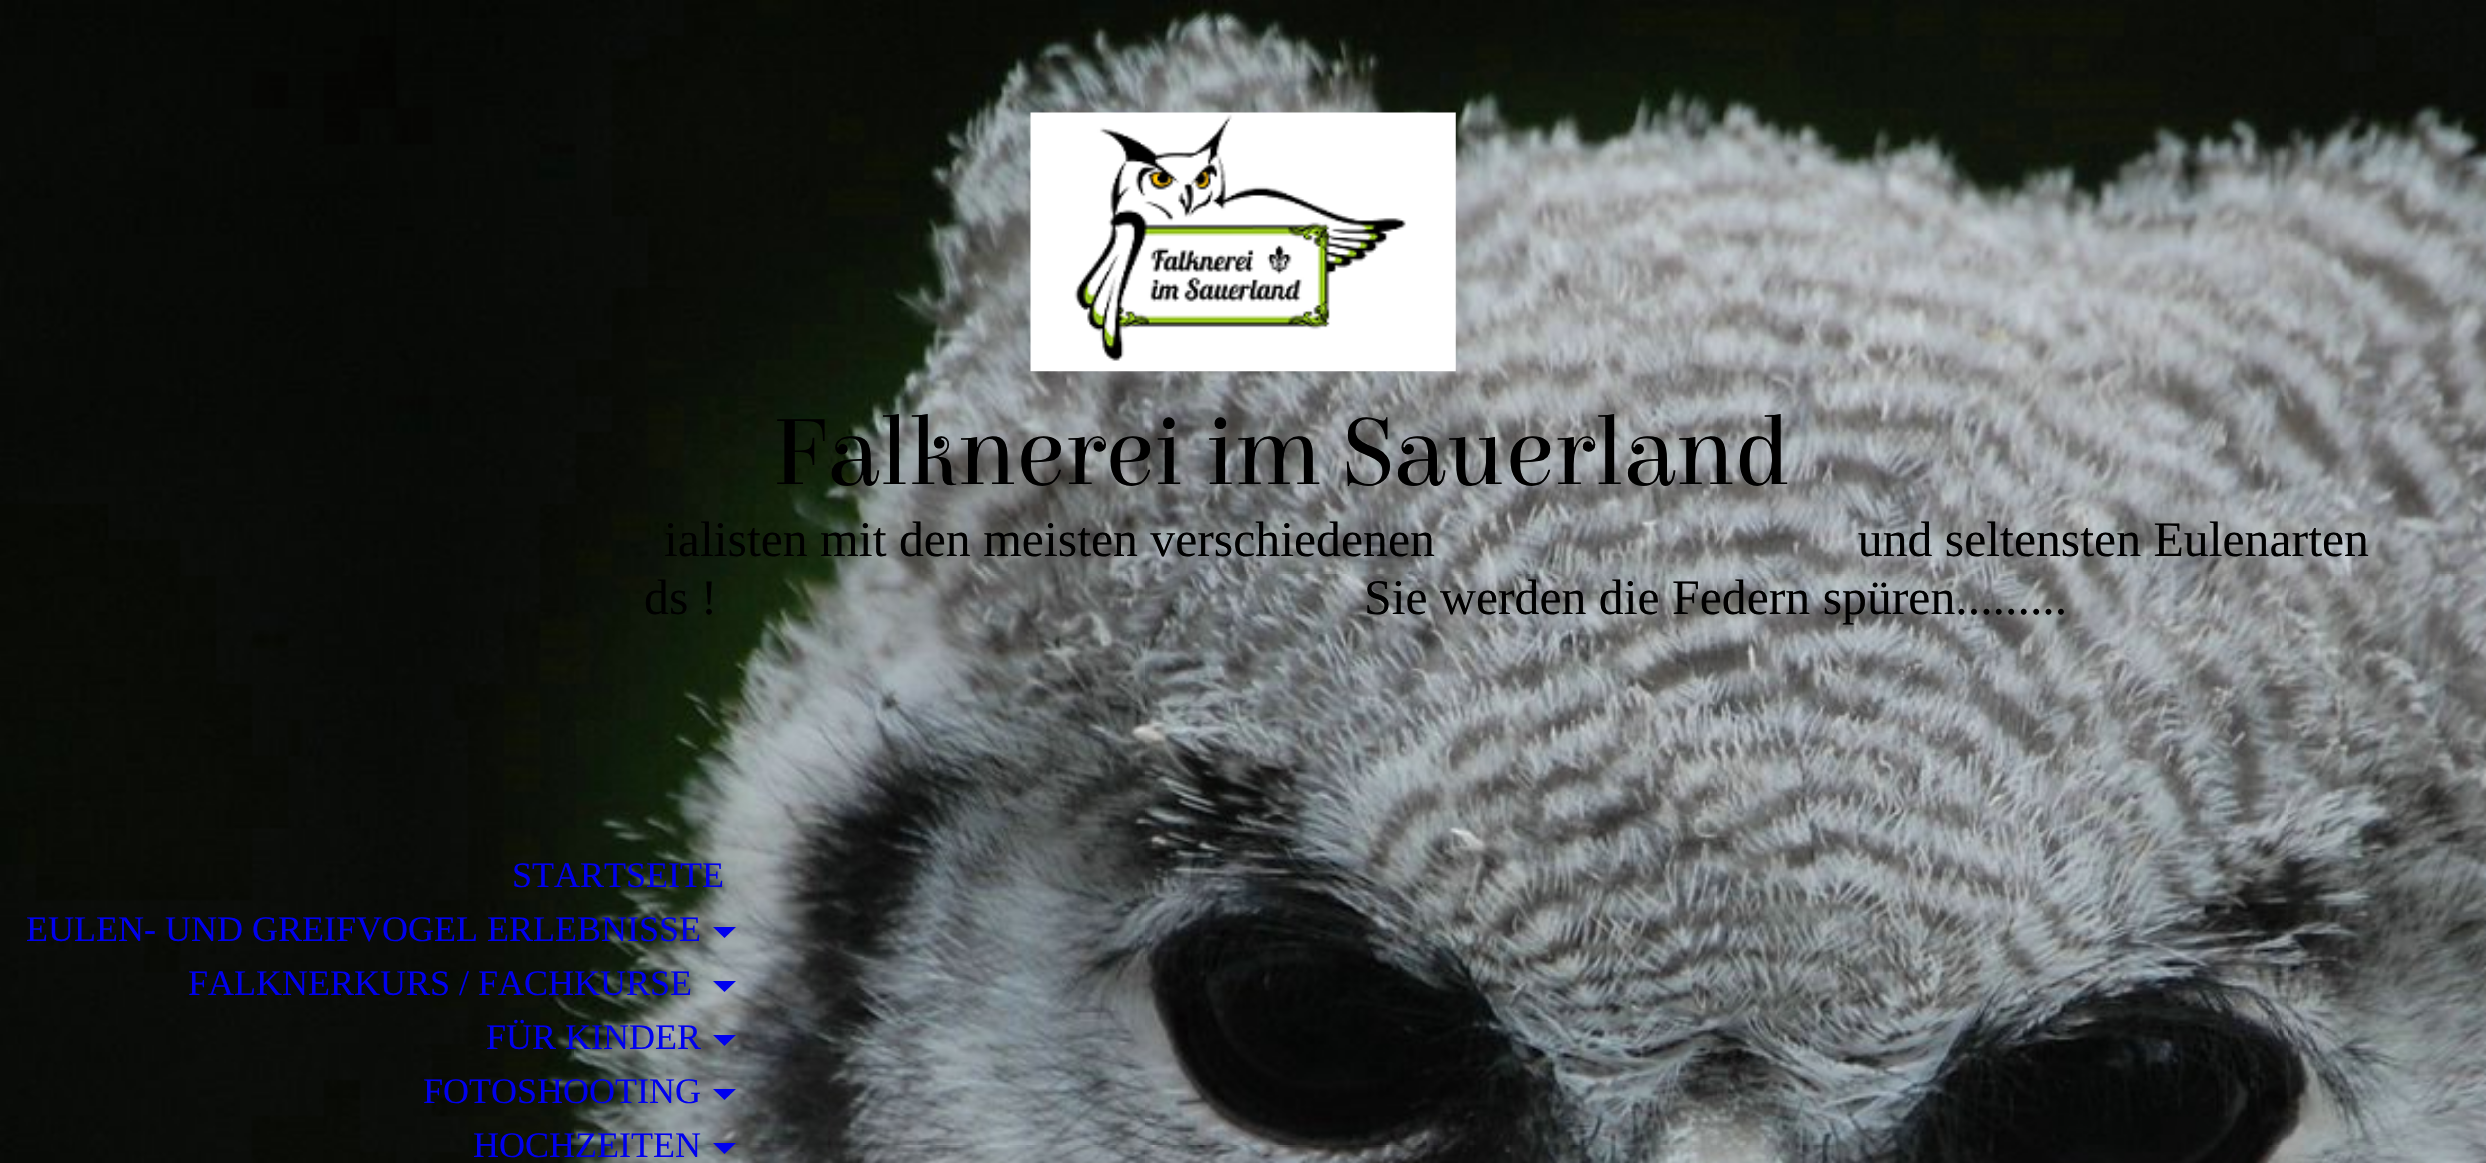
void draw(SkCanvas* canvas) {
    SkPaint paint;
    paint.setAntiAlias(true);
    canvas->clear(0xFFFFFFFF);
    canvas->drawImageRect(SkImages::DeferredFromEncodedData(SkData::MakeFromFileName("img1.png")), SkRect::MakeXYWH(0, 0, 2486, 1163), SkSamplingOptions());
    canvas->drawImageRect(SkImages::DeferredFromEncodedData(SkData::MakeFromFileName("img2.png")), SkRect::MakeXYWH(1174, 11, 65, 12), SkSamplingOptions());
    canvas->drawImageRect(SkImages::DeferredFromEncodedData(SkData::MakeFromFileName("img3.png")), SkRect::MakeXYWH(1030, 112, 426, 260), SkSamplingOptions());
    SkFont font1(fontMgr->matchFamilyStyle("Elsie", SkFontStyle::Normal()), 99.5f);
    font1.setSubpixel(true);
    paint.setColor(0xFF000000);
    canvas->drawString("Falknerei im Sauerland", 772, 484, font1, paint);
    SkFont font2(fontMgr->matchFamilyStyle("Liberation Serif", SkFontStyle::Normal()), 49.75f);
    font2.setSubpixel(true);
    canvas->drawString("ialisten mit den meisten verschiedenen                                  und seltensten Eulenarten", 664, 556, font2, paint);
    canvas->drawString("ds !                                                    Sie werden die Federn spüren.........", 644, 614, font2, paint);
    SkFont font3(fontMgr->matchFamilyStyle("Liberation Serif", SkFontStyle::Normal()), 36);
    font3.setSubpixel(true);
    paint.setColor(0xFF0000EE);
    canvas->drawString("STARTSEITE", 512, 887, font3, paint);
    canvas->drawString("EULEN- UND GREIFVOGEL ERLEBNISSE", 26, 941, font3, paint);
    canvas->drawPath(SkPathBuilder().moveTo(713, 927).lineTo(736, 927).lineTo(724.5f, 938).close().detach(), paint);
    canvas->drawString("FALKNERKURS / FACHKURSE", 188, 995, font3, paint);
    canvas->drawPath(SkPathBuilder().moveTo(713, 981).lineTo(736, 981).lineTo(724.5f, 992).close().detach(), paint);
    canvas->drawString("FÜR KINDER", 486, 1049, font3, paint);
    canvas->drawPath(SkPathBuilder().moveTo(713, 1035).lineTo(736, 1035).lineTo(724.5f, 1046).close().detach(), paint);
    canvas->drawString("FOTOSHOOTING", 423, 1103, font3, paint);
    canvas->drawPath(SkPathBuilder().moveTo(713, 1089).lineTo(736, 1089).lineTo(724.5f, 1100).close().detach(), paint);
    canvas->drawString("HOCHZEITEN", 473, 1157, font3, paint);
    canvas->drawPath(SkPathBuilder().moveTo(713, 1143).lineTo(736, 1143).lineTo(724.5f, 1154).close().detach(), paint);
}
